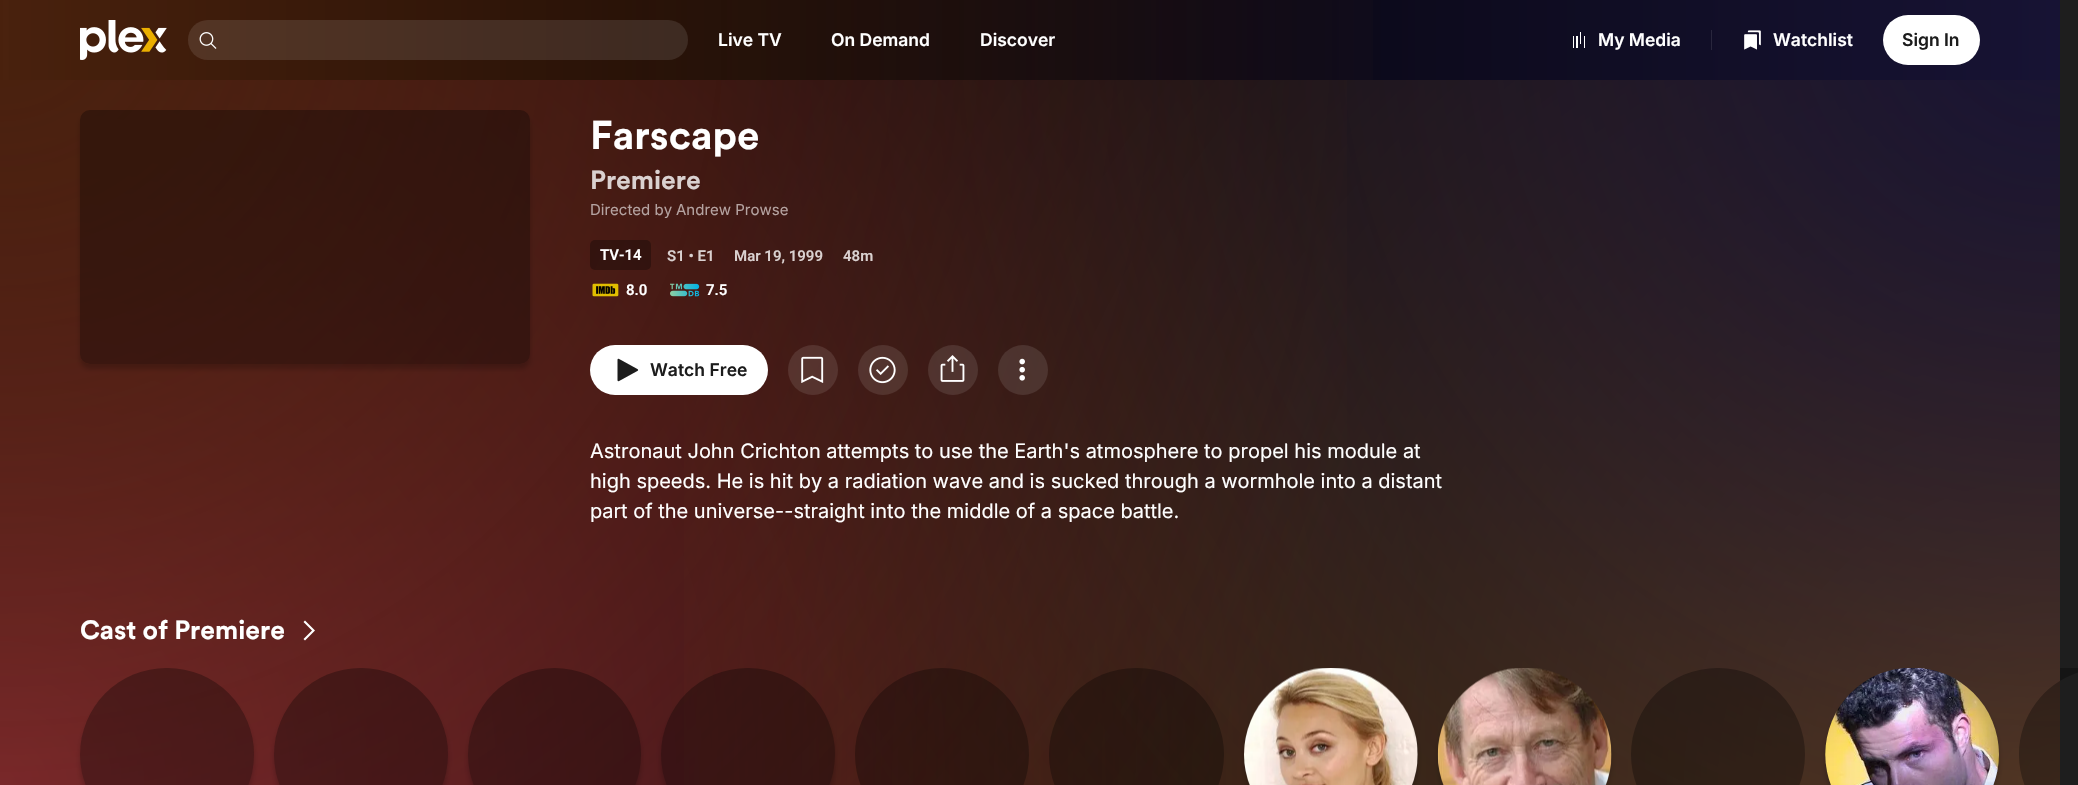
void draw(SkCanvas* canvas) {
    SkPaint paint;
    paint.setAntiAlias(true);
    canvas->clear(0xFF1E1E1E);
    {
        const SkColor colors[] = {0xFF000000, 0xFF171334};
        const float stops[] = {0.3f, 1};
        const SkPoint ends[] = {{0, 40}, {2060, 40}};
        paint.setShader(SkGradientShader::MakeLinear(ends, colors, stops, 2, SkTileMode::kClamp));
        paint.setAlpha(255);
    }
    canvas->drawRect(SkRect::MakeXYWH(9, 0, 2051, 80), paint);
    {
        const SkColor colors[] = {0xFF49210D, 0x0049210D};
        const float stops[] = {0, 0.7f};
        const SkPoint ends[] = {{0, 40}, {2060, 40}};
        paint.setShader(SkGradientShader::MakeLinear(ends, colors, stops, 2, SkTileMode::kClamp));
        paint.setAlpha(255);
    }
    canvas->drawRect(SkRect::MakeXYWH(0, 0, 1373, 80), paint);
    canvas->drawImageRect(SkImages::DeferredFromEncodedData(SkData::MakeFromFileName("img1.png")), SkRect::MakeXYWH(80, 20, 87, 40), SkSamplingOptions());
    paint.setShader(nullptr);
    paint.setColor(0x1AFFFFFF);
    canvas->drawRoundRect(SkRect::MakeXYWH(188, 20, 500, 40), 20, 20, paint);
    canvas->drawImageRect(SkImages::DeferredFromEncodedData(SkData::MakeFromFileName("img2.png")), SkRect::MakeXYWH(199, 32, 18, 17), SkSamplingOptions());
    SkFont font1(fontMgr->matchFamilyStyle("Inter", SkFontStyle(600, SkFontStyle::kNormal_Width, SkFontStyle::kUpright_Slant)), 17.5f);
    font1.setSubpixel(true);
    paint.setColor(0xFFFFFFFF);
    canvas->drawString("Live TV", 718, 46, font1, paint);
    canvas->drawString("On Demand", 831, 46, font1, paint);
    canvas->save();
    canvas->clipRect(SkRect::MakeXYWH(980, 28, 75, 25));
    canvas->drawString("Discover", 980, 46, font1, paint);
    canvas->restore();
    canvas->drawImageRect(SkImages::DeferredFromEncodedData(SkData::MakeFromFileName("img3.png")), SkRect::MakeXYWH(1573, 32, 12, 16), SkSamplingOptions());
    canvas->drawString("My Media", 1598, 46, font1, paint);
    paint.setColor(0xFF29263D);
    canvas->drawRect(SkRect::MakeXYWH(1711, 30, 1, 20), paint);
    canvas->drawImageRect(SkImages::DeferredFromEncodedData(SkData::MakeFromFileName("img4.png")), SkRect::MakeXYWH(1744, 30, 17, 20), SkSamplingOptions());
    paint.setColor(0xFFFFFFFF);
    canvas->drawString("Watchlist", 1773, 46, font1, paint);
    canvas->drawRoundRect(SkRect::MakeXYWH(1883, 15, 97, 50), 25, 25, paint);
    paint.setColor(0xFF1C1C1C);
    canvas->drawString("Sign In", 1902, 46, font1, paint);
    {
        const SkColor colors[] = {0xFFA12D41, 0xFF000000};
        const float stops[] = {0, 0.7f};
        paint.setShader(SkGradientShader::MakeRadial({0, 785}, 2060, colors, stops, 2, SkTileMode::kClamp));
        paint.setAlpha(255);
    }
    canvas->drawRect(SkRect::MakeXYWH(0, 80, 2060, 705), paint);
    {
        const SkColor colors[] = {0xFF815215, 0x00815215};
        const float stops[] = {0, 0.7f};
        paint.setShader(SkGradientShader::MakeRadial({2060, 785}, 2060, colors, stops, 2, SkTileMode::kClamp));
        paint.setAlpha(255);
    }
    canvas->drawRect(SkRect::MakeXYWH(684, 80, 1376, 705), paint);
    {
        const SkColor colors[] = {0xFF171334, 0x00171334};
        const float stops[] = {0, 0.7f};
        paint.setShader(SkGradientShader::MakeRadial({2060, 0}, 2060, colors, stops, 2, SkTileMode::kClamp));
        paint.setAlpha(255);
    }
    canvas->drawRect(SkRect::MakeXYWH(721, 80, 1339, 705), paint);
    {
        const SkColor colors[] = {0xFF49210D, 0x0049210D};
        const float stops[] = {0, 0.7f};
        paint.setShader(SkGradientShader::MakeRadial({0, 0}, 2060, colors, stops, 2, SkTileMode::kClamp));
        paint.setAlpha(255);
    }
    canvas->drawRect(SkRect::MakeXYWH(0, 80, 1347, 705), paint);
    canvas->save();
    canvas->clipPath(SkPathBuilder(SkPathFillType::kEvenOdd).moveTo(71, 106).lineTo(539, 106).lineTo(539, 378).lineTo(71, 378).close().moveTo(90, 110).lineTo(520, 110).cubicTo(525.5f, 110, 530, 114.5f, 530, 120).lineTo(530, 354).cubicTo(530, 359.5f, 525.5f, 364, 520, 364).lineTo(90, 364).cubicTo(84.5f, 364, 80, 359.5f, 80, 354).lineTo(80, 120).cubicTo(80, 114.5f, 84.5f, 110, 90, 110).close().detach(), true);
    paint.setShader(nullptr);
    paint.setColor(0x33000000);
    paint.setMaskFilter(SkMaskFilter::MakeBlur(kNormal_SkBlurStyle, 2.5f));
    canvas->drawRoundRect(SkRect::MakeXYWH(80, 115, 450, 254), 10, 10, paint);
    paint.setMaskFilter(nullptr);
    canvas->restore();
    paint.setColor(0x4D000000);
    canvas->drawRoundRect(SkRect::MakeXYWH(80, 110, 450, 254), 10, 10, paint);
    SkFont font2(fontMgr->matchFamilyStyle("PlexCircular", SkFontStyle::Bold()), 40);
    font2.setSubpixel(true);
    paint.setColor(0xFFFFFFFF);
    canvas->drawString("Farscape", 590, 149, font2, paint);
    SkFont font3(fontMgr->matchFamilyStyle("PlexCircular", SkFontStyle::Bold()), 26.25f);
    font3.setSubpixel(true);
    paint.setColor(0xFFDAD1D0);
    canvas->drawString("Premiere", 590, 189, font3, paint);
    SkFont font4(fontMgr->matchFamilyStyle("Inter", SkFontStyle::Normal()), 15);
    font4.setSubpixel(true);
    paint.setColor(0xFFB5A3A1);
    canvas->drawString("Directed by", 590, 215, font4, paint);
    canvas->drawString("Andrew Prowse", 676, 215, font4, paint);
    paint.setColor(0x4D000000);
    canvas->drawRoundRect(SkRect::MakeXYWH(590, 240, 61, 30), 5, 5, paint);
    SkFont font5(fontMgr->matchFamilyStyle("Roboto", SkFontStyle(600, SkFontStyle::kNormal_Width, SkFontStyle::kUpright_Slant)), 15);
    font5.setSubpixel(true);
    paint.setColor(0xFFFFFFFF);
    canvas->drawString("TV-14", 600, 260, font5, paint);
    paint.setColor(0xFFDAD1D0);
    canvas->drawString("S1 • E1", 667, 261, font5, paint);
    canvas->drawString("Mar 19, 1999", 734, 261, font5, paint);
    canvas->drawString("48m", 843, 261, font5, paint);
    canvas->drawImageRect(SkImages::DeferredFromEncodedData(SkData::MakeFromFileName("img5.png")), SkRect::MakeXYWH(592, 283, 27, 14), SkSamplingOptions());
    paint.setColor(0xFFFFFFFF);
    canvas->drawString("8.0", 626, 295, font5, paint);
    canvas->drawImageRect(SkImages::DeferredFromEncodedData(SkData::MakeFromFileName("img6.png")), SkRect::MakeXYWH(670, 283, 30, 14), SkSamplingOptions());
    canvas->drawString("7.5", 706, 295, font5, paint);
    canvas->drawRoundRect(SkRect::MakeXYWH(590, 345, 178, 50), 25, 25, paint);
    canvas->drawImageRect(SkImages::DeferredFromEncodedData(SkData::MakeFromFileName("img7.png")), SkRect::MakeXYWH(617, 358, 22, 24), SkSamplingOptions());
    paint.setColor(0xFF1C1C1C);
    canvas->drawString("Watch Free", 650, 376, font1, paint);
    paint.setColor(0x1AFFFFFF);
    canvas->drawCircle(813, 370, 25, paint);
    canvas->drawImageRect(SkImages::DeferredFromEncodedData(SkData::MakeFromFileName("img8.png")), SkRect::MakeXYWH(801, 356, 23, 27), SkSamplingOptions());
    canvas->drawCircle(883, 370, 25, paint);
    canvas->drawImageRect(SkImages::DeferredFromEncodedData(SkData::MakeFromFileName("img9.png")), SkRect::MakeXYWH(869, 356, 27, 28), SkSamplingOptions());
    canvas->drawCircle(953, 370, 25, paint);
    canvas->drawImageRect(SkImages::DeferredFromEncodedData(SkData::MakeFromFileName("img10.png")), SkRect::MakeXYWH(940, 355, 25, 27), SkSamplingOptions());
    canvas->drawCircle(1023, 370, 25, paint);
    canvas->drawImageRect(SkImages::DeferredFromEncodedData(SkData::MakeFromFileName("img11.png")), SkRect::MakeXYWH(1019, 358, 6, 23), SkSamplingOptions());
    SkFont font6(fontMgr->matchFamilyStyle("Inter", SkFontStyle::Normal()), 20);
    font6.setSubpixel(true);
    paint.setColor(0xFFFFFFFF);
    canvas->drawString("Astronaut John Crichton attempts to use the Earth's atmosphere to propel his module at", 590, 458, font6, paint);
    canvas->drawString("high speeds. He is hit by a radiation wave and is sucked through a wormhole into a distant", 590, 488, font6, paint);
    canvas->drawString("part of the universe--straight into the middle of a space battle.", 590, 518, font6, paint);
    canvas->drawString("Cast of Premiere", 80, 639, font3, paint);
    canvas->drawPath(SkPathBuilder().moveTo(315, 630.5f).lineTo(305, 640.5f).lineTo(303.5f, 639).lineTo(312, 630.5f).lineTo(303.5f, 622).lineTo(305, 620.5f).close().detach(), paint);
    canvas->save();
    canvas->clipPath(SkPathBuilder(SkPathFillType::kEvenOdd).moveTo(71, 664).lineTo(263, 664).lineTo(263, 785).lineTo(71, 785).close().moveTo(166.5f, 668).lineTo(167.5f, 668).cubicTo(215.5f, 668, 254, 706.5f, 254, 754.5f).cubicTo(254, 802.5f, 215.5f, 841, 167.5f, 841).lineTo(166.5f, 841).cubicTo(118.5f, 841, 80, 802.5f, 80, 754.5f).cubicTo(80, 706.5f, 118.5f, 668, 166.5f, 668).close().detach(), true);
    paint.setColor(0x33000000);
    paint.setMaskFilter(SkMaskFilter::MakeBlur(kNormal_SkBlurStyle, 2.5f));
    canvas->drawRoundRect(SkRect::MakeXYWH(80, 673, 174, 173), 86.5f, 86.5f, paint);
    paint.setMaskFilter(nullptr);
    canvas->restore();
    paint.setColor(0x4D000000);
    canvas->drawRoundRect(SkRect::MakeXYWH(80, 668, 174, 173), 86.5f, 86.5f, paint);
    canvas->save();
    canvas->clipPath(SkPathBuilder(SkPathFillType::kEvenOdd).moveTo(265, 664).lineTo(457, 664).lineTo(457, 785).lineTo(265, 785).close().moveTo(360.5f, 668).lineTo(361.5f, 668).cubicTo(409.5f, 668, 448, 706.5f, 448, 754.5f).cubicTo(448, 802.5f, 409.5f, 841, 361.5f, 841).lineTo(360.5f, 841).cubicTo(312.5f, 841, 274, 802.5f, 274, 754.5f).cubicTo(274, 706.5f, 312.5f, 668, 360.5f, 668).close().detach(), true);
    paint.setColor(0x33000000);
    paint.setMaskFilter(SkMaskFilter::MakeBlur(kNormal_SkBlurStyle, 2.5f));
    canvas->drawRoundRect(SkRect::MakeXYWH(274, 673, 174, 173), 86.5f, 86.5f, paint);
    paint.setMaskFilter(nullptr);
    canvas->restore();
    paint.setColor(0x4D000000);
    canvas->drawRoundRect(SkRect::MakeXYWH(274, 668, 174, 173), 86.5f, 86.5f, paint);
    canvas->save();
    canvas->clipPath(SkPathBuilder(SkPathFillType::kEvenOdd).moveTo(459, 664).lineTo(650, 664).lineTo(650, 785).lineTo(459, 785).close().moveTo(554.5f, 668).cubicTo(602.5f, 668, 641, 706.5f, 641, 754.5f).cubicTo(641, 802.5f, 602.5f, 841, 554.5f, 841).cubicTo(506.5f, 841, 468, 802.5f, 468, 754.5f).cubicTo(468, 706.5f, 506.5f, 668, 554.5f, 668).close().detach(), true);
    paint.setColor(0x33000000);
    paint.setMaskFilter(SkMaskFilter::MakeBlur(kNormal_SkBlurStyle, 2.5f));
    canvas->drawRoundRect(SkRect::MakeXYWH(468, 673, 173, 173), 86.5f, 86.5f, paint);
    paint.setMaskFilter(nullptr);
    canvas->restore();
    paint.setColor(0x4D000000);
    canvas->drawCircle(554.5f, 754.5f, 86.5f, paint);
    canvas->save();
    canvas->clipPath(SkPathBuilder(SkPathFillType::kEvenOdd).moveTo(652, 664).lineTo(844, 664).lineTo(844, 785).lineTo(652, 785).close().moveTo(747.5f, 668).lineTo(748.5f, 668).cubicTo(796.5f, 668, 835, 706.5f, 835, 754.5f).cubicTo(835, 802.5f, 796.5f, 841, 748.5f, 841).lineTo(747.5f, 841).cubicTo(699.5f, 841, 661, 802.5f, 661, 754.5f).cubicTo(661, 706.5f, 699.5f, 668, 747.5f, 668).close().detach(), true);
    paint.setColor(0x33000000);
    paint.setMaskFilter(SkMaskFilter::MakeBlur(kNormal_SkBlurStyle, 2.5f));
    canvas->drawRoundRect(SkRect::MakeXYWH(661, 673, 174, 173), 86.5f, 86.5f, paint);
    paint.setMaskFilter(nullptr);
    canvas->restore();
    paint.setColor(0x4D000000);
    canvas->drawRoundRect(SkRect::MakeXYWH(661, 668, 174, 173), 86.5f, 86.5f, paint);
    canvas->drawRoundRect(SkRect::MakeXYWH(855, 668, 174, 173), 86.5f, 86.5f, paint);
    canvas->drawRoundRect(SkRect::MakeXYWH(1049, 668, 175, 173), 86.5f, 86.5f, paint);
    paint.setColor(0x33000000);
    paint.setMaskFilter(SkMaskFilter::MakeBlur(kNormal_SkBlurStyle, 2.5f));
    canvas->drawRoundRect(SkRect::MakeXYWH(1244, 673, 174, 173), 86.5f, 86.5f, paint);
    paint.setMaskFilter(nullptr);
    paint.setColor(0x4D000000);
    canvas->drawRoundRect(SkRect::MakeXYWH(1244, 668, 174, 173), 86.5f, 86.5f, paint);
    canvas->drawImageRect(SkImages::DeferredFromEncodedData(SkData::MakeFromFileName("img12.png")), SkRect::MakeXYWH(1244, 668, 174, 117), SkSamplingOptions());
    paint.setColor(0x33000000);
    paint.setMaskFilter(SkMaskFilter::MakeBlur(kNormal_SkBlurStyle, 2.5f));
    canvas->drawRoundRect(SkRect::MakeXYWH(1438, 673, 173, 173), 86.5f, 86.5f, paint);
    paint.setMaskFilter(nullptr);
    canvas->drawImageRect(SkImages::DeferredFromEncodedData(SkData::MakeFromFileName("img13.png")), SkRect::MakeXYWH(1437, 668, 175, 117), SkSamplingOptions());
    paint.setColor(0x4D000000);
    canvas->drawRoundRect(SkRect::MakeXYWH(1631, 668, 174, 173), 86.5f, 86.5f, paint);
    paint.setColor(0x33000000);
    paint.setMaskFilter(SkMaskFilter::MakeBlur(kNormal_SkBlurStyle, 2.5f));
    canvas->drawRoundRect(SkRect::MakeXYWH(1825, 673, 174, 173), 86.5f, 86.5f, paint);
    paint.setMaskFilter(nullptr);
    paint.setColor(0x4D000000);
    canvas->drawRoundRect(SkRect::MakeXYWH(1825, 668, 174, 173), 86.5f, 86.5f, paint);
    canvas->drawImageRect(SkImages::DeferredFromEncodedData(SkData::MakeFromFileName("img14.png")), SkRect::MakeXYWH(1825, 668, 174, 117), SkSamplingOptions());
    canvas->drawPath(SkPathBuilder().moveTo(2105.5f, 668).lineTo(2060, 668).lineTo(2060, 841).lineTo(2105.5f, 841).cubicTo(2057.5f, 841, 2019, 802.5f, 2019, 754.5f).cubicTo(2019, 706.5f, 2057.5f, 668, 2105.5f, 668).close().detach(), paint);
}
